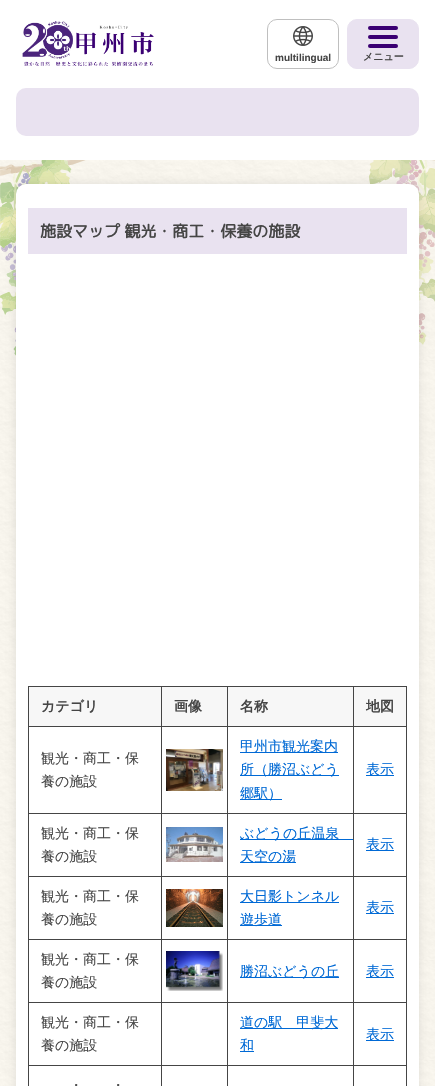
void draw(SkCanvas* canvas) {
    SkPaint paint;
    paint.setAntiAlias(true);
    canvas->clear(0xFFFFFFFF);
    canvas->drawImageRect(SkImages::DeferredFromEncodedData(SkData::MakeFromFileName("img1.png")), SkRect::MakeXYWH(22, 21, 132, 45), SkSamplingOptions());
    paint.setStyle(SkPaint::kStroke_Style);
    paint.setStrokeWidth(1);
    paint.setColor(0xFFBFBFBF);
    canvas->drawRoundRect(SkRect::MakeXYWH(267.5f, 19.5f, 71, 49), 9.5f, 9.5f, paint);
    canvas->drawImageRect(SkImages::DeferredFromEncodedData(SkData::MakeFromFileName("img2.png")), SkRect::MakeXYWH(293, 26, 20, 20), SkSamplingOptions());
    SkFont font1(fontMgr->matchFamilyStyle("Liberation Sans", SkFontStyle::Bold()), 10);
    font1.setSubpixel(true);
    paint.setStyle(SkPaint::kFill_Style);
    paint.setColor(0xFF454545);
    canvas->drawString("multilingual", 275, 61, font1, paint);
    paint.setColor(0xFFE9E2F0);
    canvas->drawRoundRect(SkRect::MakeXYWH(347.5f, 19.5f, 71, 49), 9.5f, 9.5f, paint);
    paint.setStyle(SkPaint::kStroke_Style);
    canvas->drawRoundRect(SkRect::MakeXYWH(347.5f, 19.5f, 71, 49), 9.5f, 9.5f, paint);
    paint.setStyle(SkPaint::kFill_Style);
    paint.setColor(0xFF3A0073);
    canvas->drawRoundRect(SkRect::MakeXYWH(368, 26, 30, 4), 2, 2, paint);
    canvas->drawRoundRect(SkRect::MakeXYWH(368, 35, 30, 4), 2, 2, paint);
    canvas->drawRoundRect(SkRect::MakeXYWH(368, 44, 30, 4), 2, 2, paint);
    SkFont font2(fontMgr->matchFamilyStyle("WenQuanYi Zen Hei", SkFontStyle::Bold()), 10);
    font2.setSubpixel(true);
    paint.setColor(0xFF454545);
    canvas->drawString("メニュー", 363, 60, font2, paint);
    paint.setColor(0xFFE9E2F0);
    canvas->drawRoundRect(SkRect::MakeXYWH(16, 88, 403, 48), 10, 10, paint);
    paint.setColor(0xFFFFFBF2);
    canvas->drawRect(SkRect::MakeXYWH(0, 160, 435, 926), paint);
    canvas->drawImageRect(SkImages::DeferredFromEncodedData(SkData::MakeFromFileName("img3.png")), SkRect::MakeXYWH(0, 160, 435, 926), SkSamplingOptions());
    canvas->drawImageRect(SkImages::DeferredFromEncodedData(SkData::MakeFromFileName("img4.png")), SkRect::MakeXYWH(0, 160, 86, 196), SkSamplingOptions());
    canvas->drawImageRect(SkImages::DeferredFromEncodedData(SkData::MakeFromFileName("img5.png")), SkRect::MakeXYWH(369, 160, 66, 185), SkSamplingOptions());
    paint.setColor(0x1A000000);
    paint.setMaskFilter(SkMaskFilter::MakeBlur(kNormal_SkBlurStyle, 5));
    canvas->drawRoundRect(SkRect::MakeXYWH(16, 184, 403, 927), 10, 10, paint);
    paint.setMaskFilter(nullptr);
    paint.setColor(0xFFFFFFFF);
    canvas->drawRoundRect(SkRect::MakeXYWH(16, 184, 403, 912), 10, 10, paint);
    paint.setColor(0xFFE9E2F0);
    canvas->drawRect(SkRect::MakeXYWH(28, 208, 379, 46), paint);
    SkFont font3(fontMgr->matchFamilyStyle("Rounded Mplus 1c", SkFontStyle::Bold()), 16);
    font3.setSubpixel(true);
    paint.setColor(0xFF454545);
    canvas->drawString("施設マップ 観光・商工・保養の施設", 40, 237, font3, paint);
    canvas->drawRect(SkRect::MakeXYWH(28, 686, 379, 1), paint);
    canvas->drawRect(SkRect::MakeXYWH(406, 686, 1, 400), paint);
    canvas->drawRect(SkRect::MakeXYWH(28, 686, 1, 400), paint);
    paint.setColor(0xFFF7F7F7);
    canvas->drawRect(SkRect::MakeXYWH(29, 687, 132, 39), paint);
    SkFont font4(fontMgr->matchFamilyStyle("WenQuanYi Zen Hei", SkFontStyle::Bold()), 14);
    font4.setSubpixel(true);
    paint.setColor(0xFF454545);
    canvas->drawString("カテゴリ", 41, 711, font4, paint);
    paint.setColor(0xFFF7F7F7);
    canvas->drawRect(SkRect::MakeXYWH(162, 687, 65, 39), paint);
    paint.setColor(0xFF454545);
    canvas->drawRect(SkRect::MakeXYWH(353, 726, 54, 1), paint);
    canvas->drawRect(SkRect::MakeXYWH(353, 813, 54, 1), paint);
    canvas->drawRect(SkRect::MakeXYWH(353, 876, 54, 1), paint);
    canvas->drawRect(SkRect::MakeXYWH(353, 939, 54, 1), paint);
    canvas->drawRect(SkRect::MakeXYWH(353, 1002, 54, 1), paint);
    canvas->drawRect(SkRect::MakeXYWH(353, 1065, 54, 1), paint);
    canvas->drawRect(SkRect::MakeXYWH(353, 1065, 1, 21), paint);
    canvas->drawRect(SkRect::MakeXYWH(227, 1065, 127, 1), paint);
    canvas->drawRect(SkRect::MakeXYWH(353, 1002, 1, 64), paint);
    canvas->drawRect(SkRect::MakeXYWH(227, 1002, 127, 1), paint);
    canvas->drawRect(SkRect::MakeXYWH(353, 939, 1, 64), paint);
    canvas->drawRect(SkRect::MakeXYWH(227, 939, 127, 1), paint);
    canvas->drawRect(SkRect::MakeXYWH(353, 876, 1, 64), paint);
    canvas->drawRect(SkRect::MakeXYWH(227, 876, 127, 1), paint);
    canvas->drawRect(SkRect::MakeXYWH(353, 813, 1, 64), paint);
    canvas->drawRect(SkRect::MakeXYWH(227, 813, 127, 1), paint);
    canvas->drawRect(SkRect::MakeXYWH(353, 726, 1, 88), paint);
    canvas->drawRect(SkRect::MakeXYWH(227, 726, 127, 1), paint);
    canvas->drawRect(SkRect::MakeXYWH(227, 1065, 1, 21), paint);
    canvas->drawRect(SkRect::MakeXYWH(161, 1065, 67, 1), paint);
    canvas->drawRect(SkRect::MakeXYWH(227, 1002, 1, 64), paint);
    canvas->drawRect(SkRect::MakeXYWH(161, 1002, 67, 1), paint);
    canvas->drawRect(SkRect::MakeXYWH(227, 939, 1, 64), paint);
    canvas->drawRect(SkRect::MakeXYWH(161, 939, 67, 1), paint);
    canvas->drawRect(SkRect::MakeXYWH(227, 876, 1, 64), paint);
    canvas->drawRect(SkRect::MakeXYWH(161, 876, 67, 1), paint);
    canvas->drawRect(SkRect::MakeXYWH(227, 813, 1, 64), paint);
    canvas->drawRect(SkRect::MakeXYWH(161, 813, 67, 1), paint);
    canvas->drawRect(SkRect::MakeXYWH(227, 726, 1, 88), paint);
    canvas->drawRect(SkRect::MakeXYWH(161, 726, 67, 1), paint);
    canvas->drawRect(SkRect::MakeXYWH(161, 1065, 1, 21), paint);
    canvas->drawRect(SkRect::MakeXYWH(28, 1065, 134, 1), paint);
    canvas->drawRect(SkRect::MakeXYWH(161, 1002, 1, 64), paint);
    canvas->drawRect(SkRect::MakeXYWH(28, 1002, 134, 1), paint);
    canvas->drawRect(SkRect::MakeXYWH(161, 939, 1, 64), paint);
    canvas->drawRect(SkRect::MakeXYWH(28, 939, 134, 1), paint);
    canvas->drawRect(SkRect::MakeXYWH(161, 876, 1, 64), paint);
    canvas->drawRect(SkRect::MakeXYWH(28, 876, 134, 1), paint);
    canvas->drawRect(SkRect::MakeXYWH(161, 813, 1, 64), paint);
    canvas->drawRect(SkRect::MakeXYWH(28, 813, 134, 1), paint);
    canvas->drawRect(SkRect::MakeXYWH(161, 726, 1, 88), paint);
    canvas->drawRect(SkRect::MakeXYWH(28, 726, 134, 1), paint);
    canvas->drawRect(SkRect::MakeXYWH(161, 686, 1, 41), paint);
    canvas->drawString("画像", 174, 711, font4, paint);
    paint.setColor(0xFFF7F7F7);
    canvas->drawRect(SkRect::MakeXYWH(228, 687, 125, 39), paint);
    paint.setColor(0xFF454545);
    canvas->drawRect(SkRect::MakeXYWH(227, 686, 1, 41), paint);
    canvas->drawString("名称", 240, 711, font4, paint);
    paint.setColor(0xFFF7F7F7);
    canvas->drawRect(SkRect::MakeXYWH(354, 687, 52, 39), paint);
    paint.setColor(0xFF454545);
    canvas->drawRect(SkRect::MakeXYWH(353, 686, 1, 41), paint);
    canvas->drawString("地図", 366, 711, font4, paint);
    SkFont font5(fontMgr->matchFamilyStyle("WenQuanYi Zen Hei", SkFontStyle(500, SkFontStyle::kNormal_Width, SkFontStyle::kUpright_Slant)), 14);
    font5.setSubpixel(true);
    canvas->drawString("観光・商工・保", 41, 763, font5, paint);
    canvas->drawString("養の施設", 41, 786, font5, paint);
    canvas->drawImageRect(SkImages::DeferredFromEncodedData(SkData::MakeFromFileName("img6.png")), SkRect::MakeXYWH(166, 749, 57, 42), SkSamplingOptions());
    paint.setColor(0xFF0069D5);
    canvas->drawRect(SkRect::MakeXYWH(240, 752, 98, 1), paint);
    canvas->drawString("甲州市観光案内", 240, 751, font5, paint);
    canvas->drawRect(SkRect::MakeXYWH(240, 775, 99, 1), paint);
    canvas->drawString("所（勝沼ぶどう", 240, 774, font5, paint);
    canvas->drawRect(SkRect::MakeXYWH(240, 799, 42, 1), paint);
    canvas->drawString("郷駅）", 240, 798, font5, paint);
    canvas->drawRect(SkRect::MakeXYWH(366, 775, 28, 1), paint);
    canvas->drawString("表示", 366, 774, font5, paint);
    paint.setColor(0xFF454545);
    canvas->drawString("観光・商工・保", 41, 838, font5, paint);
    canvas->drawString("養の施設", 41, 861, font5, paint);
    canvas->drawImageRect(SkImages::DeferredFromEncodedData(SkData::MakeFromFileName("img7.png")), SkRect::MakeXYWH(166, 827, 57, 35), SkSamplingOptions());
    paint.setColor(0xFF0069D5);
    canvas->drawRect(SkRect::MakeXYWH(240, 839, 113, 1), paint);
    canvas->drawString("ぶどうの丘温泉", 240, 838, font5, paint);
    canvas->drawRect(SkRect::MakeXYWH(240, 862, 56, 1), paint);
    canvas->drawString("天空の湯", 240, 861, font5, paint);
    canvas->drawRect(SkRect::MakeXYWH(366, 850, 28, 1), paint);
    canvas->drawString("表示", 366, 849, font5, paint);
    paint.setColor(0xFF454545);
    canvas->drawString("観光・商工・保", 41, 901, font5, paint);
    canvas->drawString("養の施設", 41, 924, font5, paint);
    canvas->drawImageRect(SkImages::DeferredFromEncodedData(SkData::MakeFromFileName("img8.png")), SkRect::MakeXYWH(166, 889, 57, 38), SkSamplingOptions());
    paint.setColor(0xFF0069D5);
    canvas->drawRect(SkRect::MakeXYWH(240, 902, 99, 1), paint);
    canvas->drawString("大日影トンネル", 240, 901, font5, paint);
    canvas->drawRect(SkRect::MakeXYWH(240, 925, 42, 1), paint);
    canvas->drawString("遊歩道", 240, 924, font5, paint);
    canvas->drawRect(SkRect::MakeXYWH(366, 913, 28, 1), paint);
    canvas->drawString("表示", 366, 912, font5, paint);
    paint.setColor(0xFF454545);
    canvas->drawString("観光・商工・保", 41, 964, font5, paint);
    canvas->drawString("養の施設", 41, 987, font5, paint);
    canvas->drawImageRect(SkImages::DeferredFromEncodedData(SkData::MakeFromFileName("img9.png")), SkRect::MakeXYWH(166, 951, 57, 40), SkSamplingOptions());
    paint.setColor(0xFF0069D5);
    canvas->drawRect(SkRect::MakeXYWH(240, 977, 99, 1), paint);
    canvas->drawString("勝沼ぶどうの丘", 240, 976, font5, paint);
    canvas->drawRect(SkRect::MakeXYWH(366, 977, 28, 1), paint);
    canvas->drawString("表示", 366, 976, font5, paint);
    paint.setColor(0xFF454545);
    canvas->drawString("観光・商工・保", 41, 1027, font5, paint);
    canvas->drawString("養の施設", 41, 1050, font5, paint);
    paint.setColor(0xFF0069D5);
    canvas->drawRect(SkRect::MakeXYWH(240, 1028, 98, 1), paint);
    canvas->drawString("道の駅　甲斐大", 240, 1027, font5, paint);
    canvas->drawRect(SkRect::MakeXYWH(240, 1051, 14, 1), paint);
    canvas->drawString("和", 240, 1050, font5, paint);
    canvas->drawRect(SkRect::MakeXYWH(366, 1040, 28, 1), paint);
    canvas->drawString("表示", 366, 1039, font5, paint);
    paint.setColor(0xFF454545);
    canvas->drawString("・", 69, 1090, font5, paint);
    canvas->drawString("・", 111, 1090, font5, paint);
}
